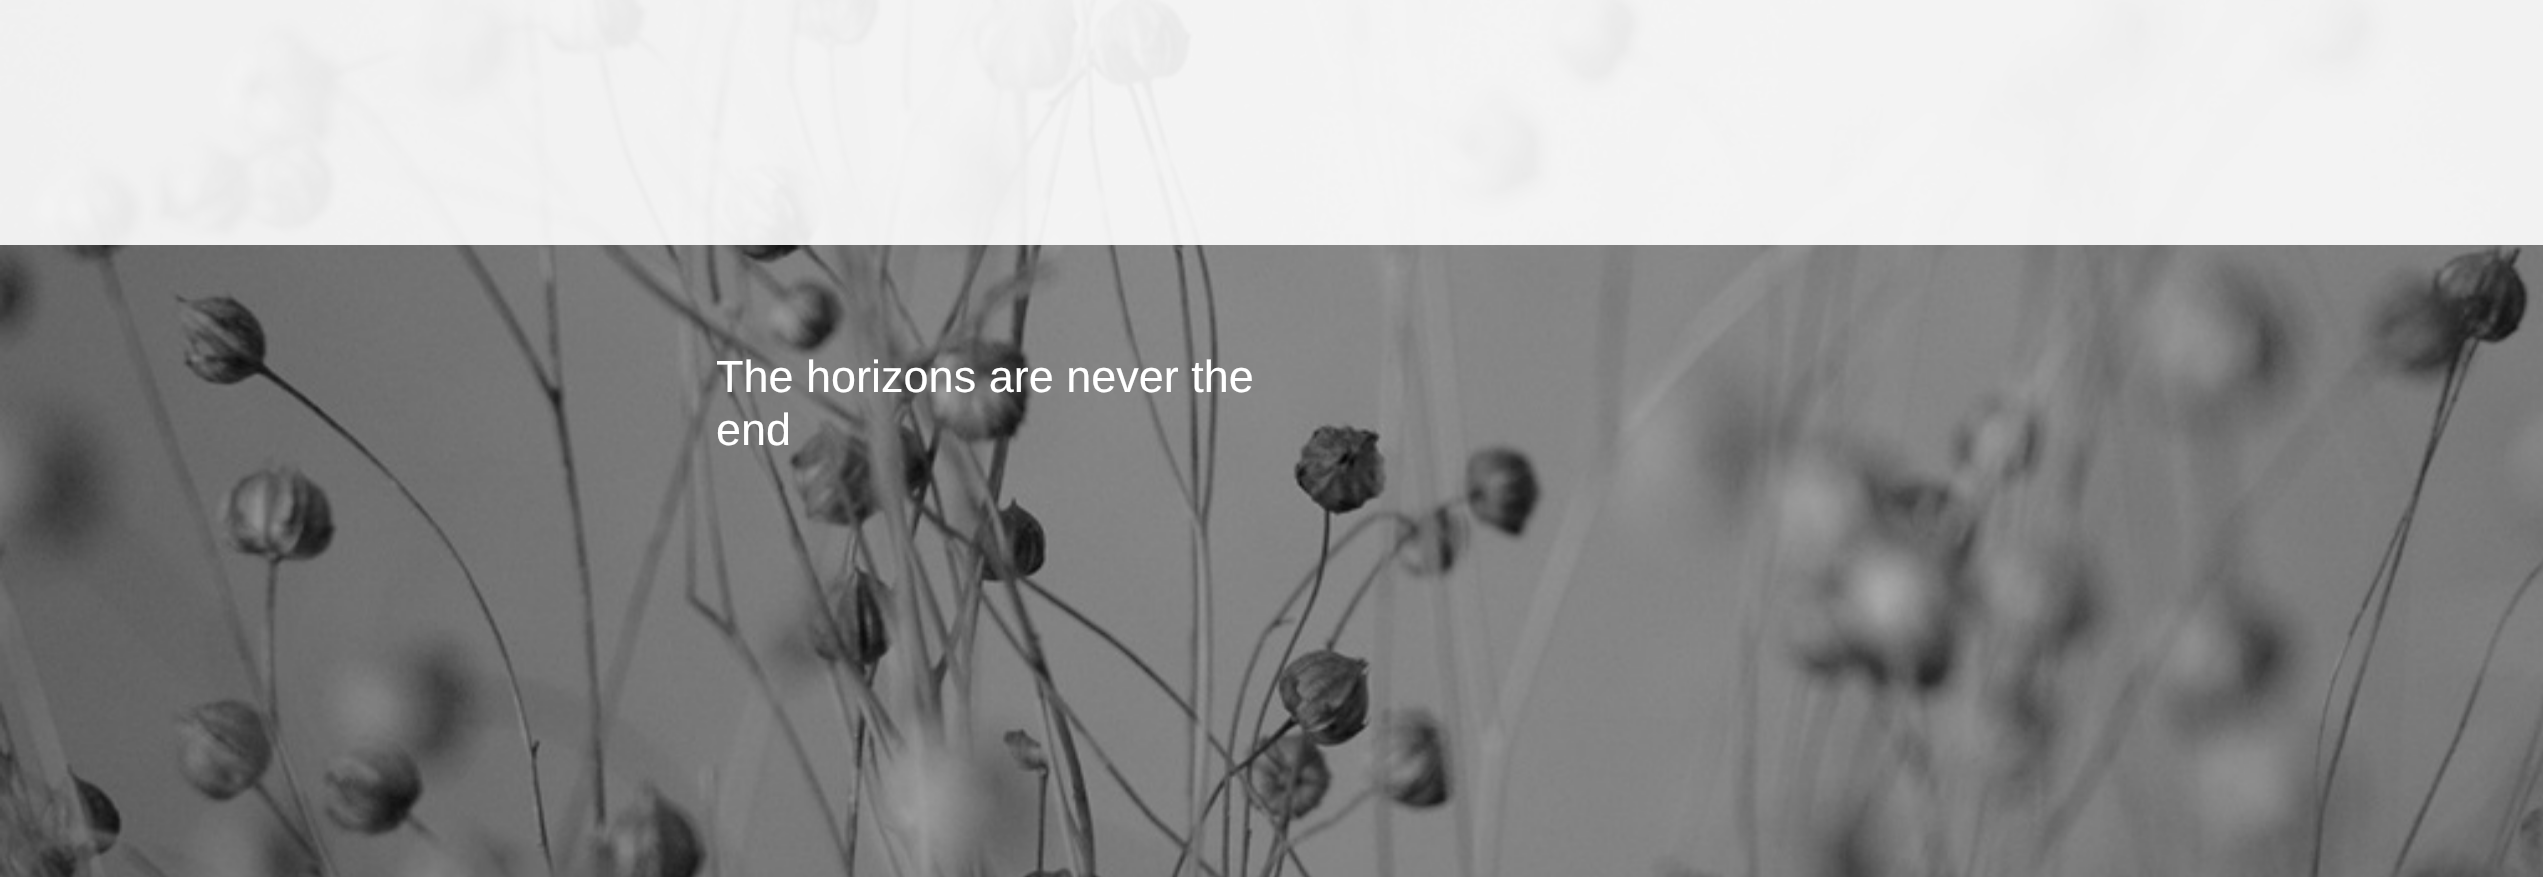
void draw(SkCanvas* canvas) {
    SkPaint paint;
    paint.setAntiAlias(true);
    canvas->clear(0xFFFFFFFF);
    canvas->drawImageRect(SkImages::DeferredFromEncodedData(SkData::MakeFromFileName("img1.png")), SkRect::MakeXYWH(0, 0, 2543, 877), SkSamplingOptions());
    paint.setColor(0xE6FFFFFF);
    canvas->drawRect(SkRect::MakeXYWH(0, 0, 2543, 245), paint);
    SkFont font1(fontMgr->matchFamilyStyle("Liberation Sans", SkFontStyle::Normal()), 45);
    font1.setSubpixel(true);
    paint.setColor(0xFFFFFFFF);
    canvas->drawString("The horizons are never the", 716, 392, font1, paint);
    canvas->drawString("end", 716, 445, font1, paint);
}
